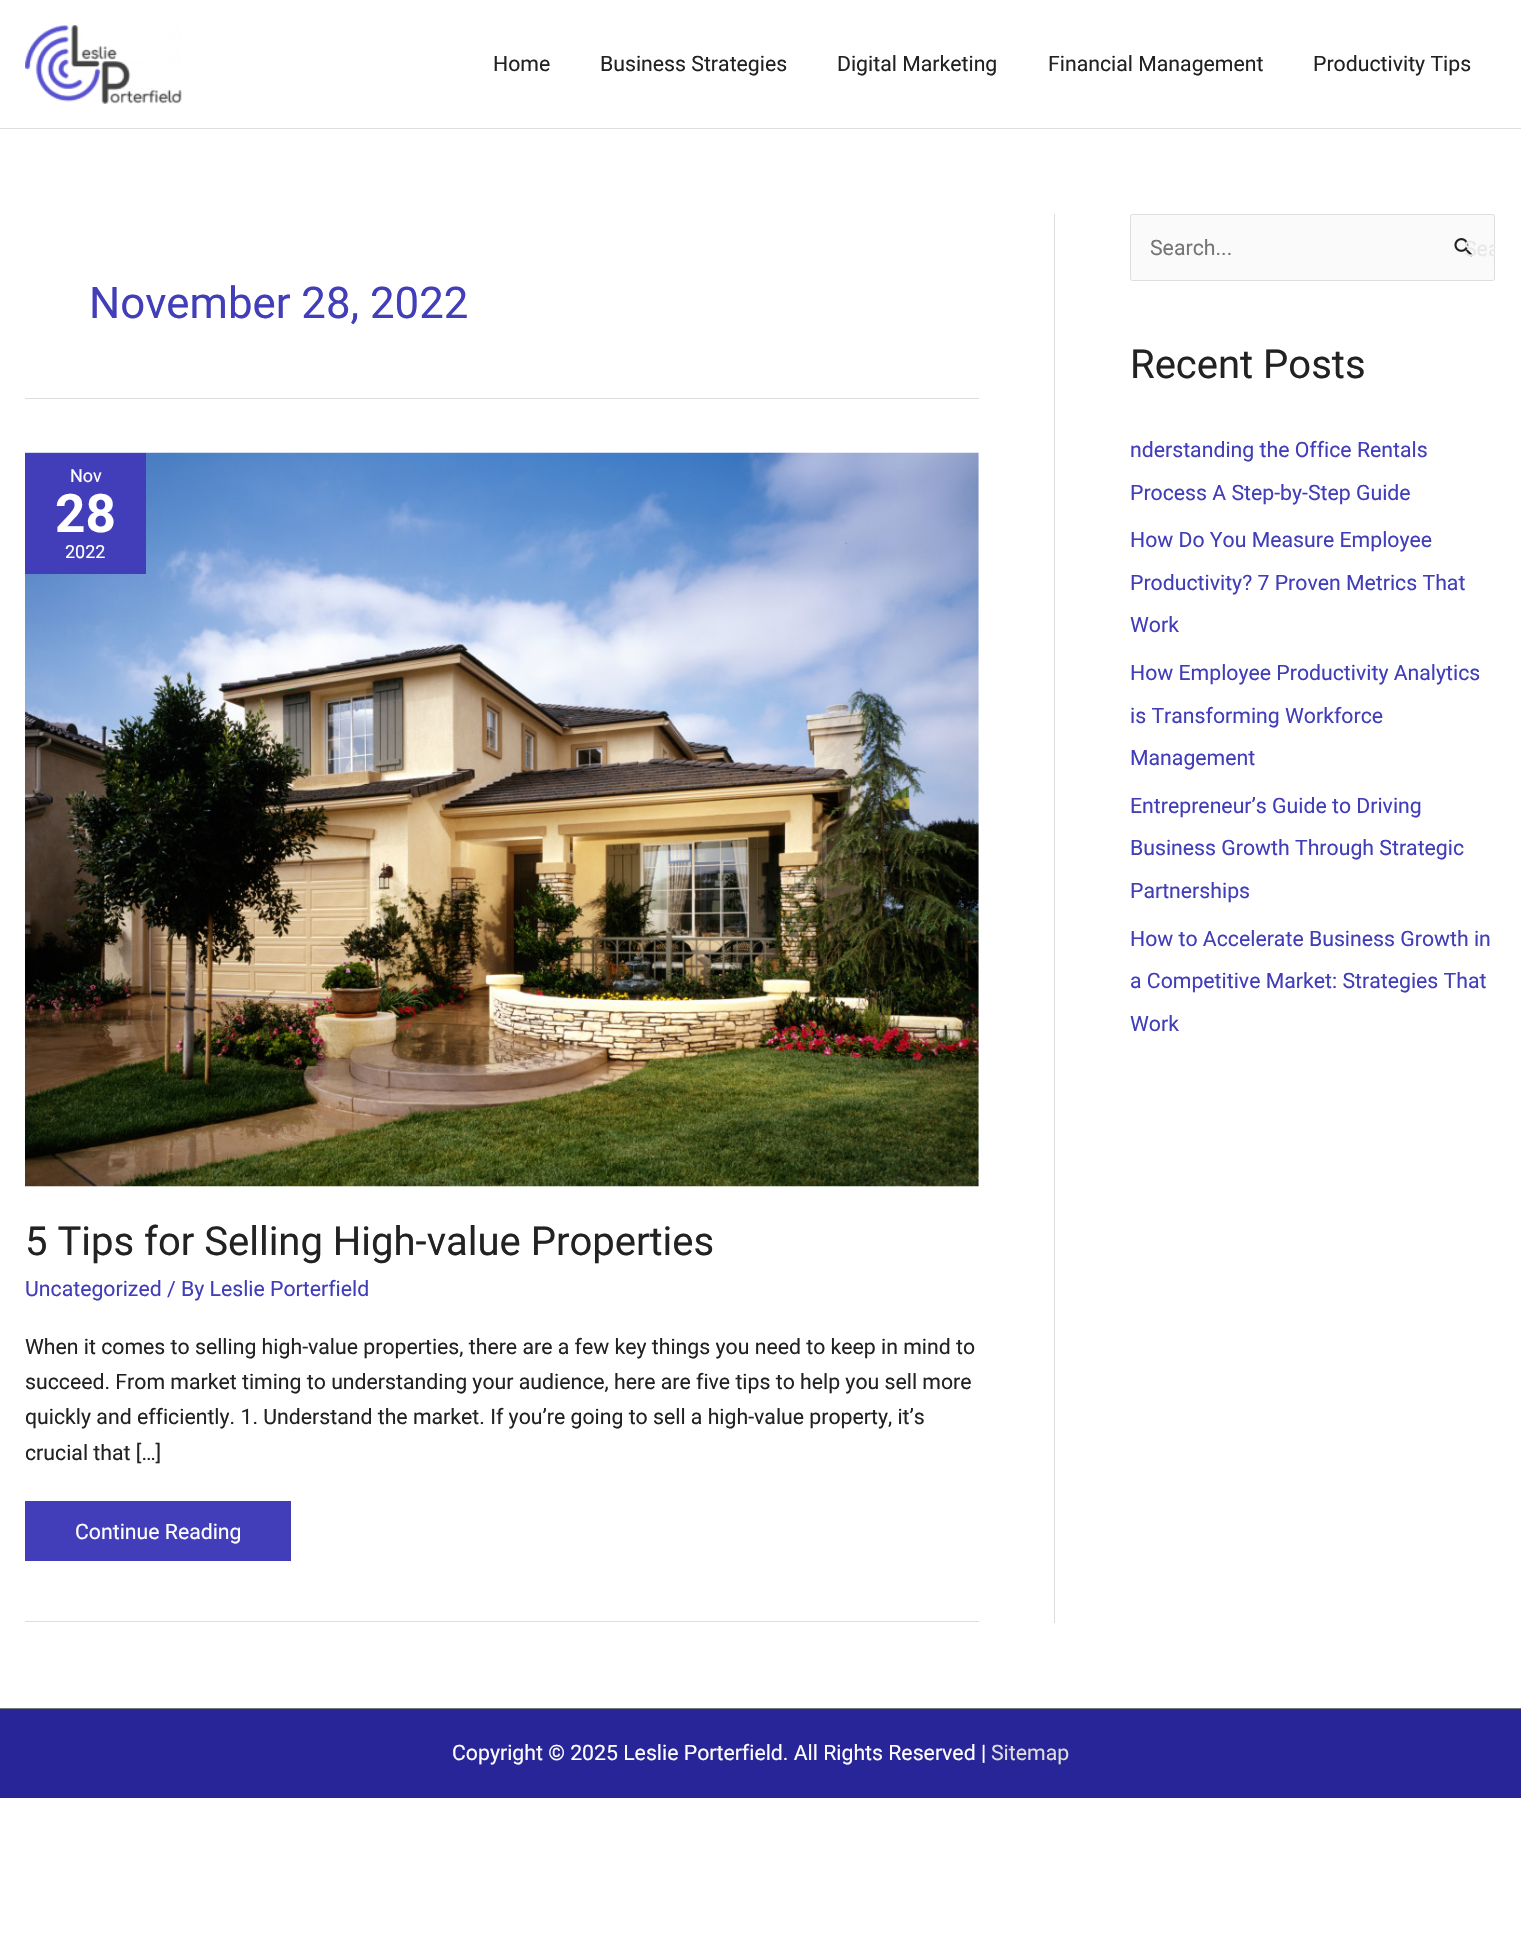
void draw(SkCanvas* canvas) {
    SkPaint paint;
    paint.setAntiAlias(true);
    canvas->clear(0xFFFFFFFF);
    paint.setColor(0xFFDDDDDD);
    canvas->drawRect(SkRect::MakeXYWH(0, 128, 1521, 1), paint);
    canvas->drawImageRect(SkImages::DeferredFromEncodedData(SkData::MakeFromFileName("img1.png")), SkRect::MakeXYWH(25, 25, 157, 79), SkSamplingOptions());
    SkFont font1(fontMgr->matchFamilyStyle("Roboto", SkFontStyle::Normal()), 21.25f);
    font1.setSubpixel(true);
    paint.setColor(0xFF222222);
    canvas->drawString("Home", 493, 71, font1, paint);
    canvas->drawString("Business Strategies", 600, 71, font1, paint);
    canvas->drawString("Digital Marketing", 837, 71, font1, paint);
    canvas->drawString("Financial Management", 1048, 71, font1, paint);
    canvas->drawString("Productivity Tips", 1313, 71, font1, paint);
    paint.setColor(0xFFDDDDDD);
    canvas->drawRect(SkRect::MakeXYWH(1054, 214, 1, 1409), paint);
    canvas->drawRect(SkRect::MakeXYWH(25, 398, 954, 1), paint);
    SkFont font2(fontMgr->matchFamilyStyle("Roboto", SkFontStyle::Normal()), 43.75f);
    font2.setSubpixel(true);
    paint.setColor(0xFF423EB9);
    canvas->drawString("November 28, 2022", 89, 318, font2, paint);
    paint.setColor(0xFFDDDDDD);
    canvas->drawRect(SkRect::MakeXYWH(25, 1621, 954, 1), paint);
    canvas->drawImageRect(SkImages::DeferredFromEncodedData(SkData::MakeFromFileName("img2.png")), SkRect::MakeXYWH(25, 452, 954, 735), SkSamplingOptions());
    paint.setColor(0xFF423EB9);
    canvas->drawRect(SkRect::MakeXYWH(25, 453, 121, 121), paint);
    SkFont font3(fontMgr->matchFamilyStyle("Roboto", SkFontStyle::Normal()), 18);
    font3.setSubpixel(true);
    paint.setColor(0xFFFFFFFF);
    canvas->drawString("Nov", 70, 482, font3, paint);
    SkFont font4(fontMgr->matchFamilyStyle("Roboto", SkFontStyle::Bold()), 53);
    font4.setSubpixel(true);
    canvas->drawString("28", 55, 532, font4, paint);
    canvas->drawString("2022", 65, 558, font3, paint);
    SkFont font5(fontMgr->matchFamilyStyle("Roboto", SkFontStyle::Normal()), 40);
    font5.setSubpixel(true);
    paint.setColor(0xFF222222);
    canvas->drawString("5 Tips for Selling High-value Properties", 25, 1255, font5, paint);
    paint.setColor(0xFF423EB9);
    canvas->drawString("Uncategorized / By Leslie Porterfield", 25, 1296, font1, paint);
    paint.setColor(0xFF222222);
    canvas->drawString("When it comes to selling high-value properties, there are a few key things you need to keep in mind to", 25, 1354, font1, paint);
    canvas->drawString("succeed. From market timing to understanding your audience, here are five tips to help you sell more", 25, 1389, font1, paint);
    canvas->drawString("quickly and efficiently. 1. Understand the market. If you’re going to sell a high-value property, it’s", 25, 1424, font1, paint);
    canvas->drawString("crucial that […]", 25, 1460, font1, paint);
    paint.setColor(0xFF423EB9);
    canvas->drawRect(SkRect::MakeXYWH(25, 1501, 266, 60), paint);
    paint.setColor(0xFFFFFFFF);
    canvas->drawString("Continue Reading", 75, 1539, font1, paint);
    paint.setColor(0xFFFAFAFA);
    canvas->drawRoundRect(SkRect::MakeXYWH(1130.5f, 214.5f, 364, 66), 2, 2, paint);
    paint.setStyle(SkPaint::kStroke_Style);
    paint.setStrokeWidth(1);
    paint.setColor(0xFFDDDDDD);
    canvas->drawRoundRect(SkRect::MakeXYWH(1130.5f, 214.5f, 364, 66), 2, 2, paint);
    paint.setStyle(SkPaint::kFill_Style);
    paint.setColor(0xFF757575);
    canvas->drawString("Search...", 1150, 255, font1, paint);
    canvas->drawImageRect(SkImages::DeferredFromEncodedData(SkData::MakeFromFileName("img3.png")), SkRect::MakeXYWH(1454, 238, 19, 19), SkSamplingOptions());
    canvas->save();
    canvas->clipPath(SkPathBuilder().moveTo(1441.5f, 214).lineTo(1492.5f, 214).cubicTo(1494, 214, 1495, 215, 1495, 216.5f).lineTo(1495, 283.5f).cubicTo(1495, 285, 1494, 286, 1492.5f, 286).lineTo(1441.5f, 286).cubicTo(1440, 286, 1439, 285, 1439, 283.5f).lineTo(1439, 216.5f).cubicTo(1439, 215, 1440, 214, 1441.5f, 214).close().detach(), true);
    paint.setColor(0xFFE8E8E8);
    canvas->drawString("Sea", 1464, 256, font1, paint);
    canvas->restore();
    paint.setColor(0xFF222222);
    canvas->drawString("Recent Posts", 1130, 378, font5, paint);
    paint.setColor(0xFF423EB9);
    canvas->drawString("nderstanding the Office Rentals", 1130, 457, font1, paint);
    canvas->drawString("Process A Step-by-Step Guide", 1130, 500, font1, paint);
    canvas->drawString("How Do You Measure Employee", 1130, 547, font1, paint);
    canvas->drawString("Productivity? 7 Proven Metrics That", 1130, 590, font1, paint);
    canvas->drawString("Work", 1130, 632, font1, paint);
    canvas->drawString("How Employee Productivity Analytics", 1130, 680, font1, paint);
    canvas->drawString("is Transforming Workforce", 1130, 723, font1, paint);
    canvas->drawString("Management", 1130, 765, font1, paint);
    canvas->drawString("Entrepreneur’s Guide to Driving", 1130, 813, font1, paint);
    canvas->drawString("Business Growth Through Strategic", 1130, 855, font1, paint);
    canvas->drawString("Partnerships", 1130, 898, font1, paint);
    canvas->drawString("How to Accelerate Business Growth in", 1130, 946, font1, paint);
    canvas->drawString("a Competitive Market: Strategies That", 1130, 988, font1, paint);
    canvas->drawString("Work", 1130, 1031, font1, paint);
    paint.setColor(0xFF7A7A7A);
    canvas->drawRect(SkRect::MakeXYWH(0, 1708, 1521, 1), paint);
    paint.setColor(0xFF282598);
    canvas->drawRect(SkRect::MakeXYWH(0, 1709, 1521, 89), paint);
    paint.setColor(0xFFFFFFFF);
    canvas->drawString("Copyright © 2025 Leslie Porterfield. All Rights Reserved |", 452, 1760, font1, paint);
    paint.setColor(0xFFDDDDDD);
    canvas->drawString("Sitemap", 991, 1760, font1, paint);
}
